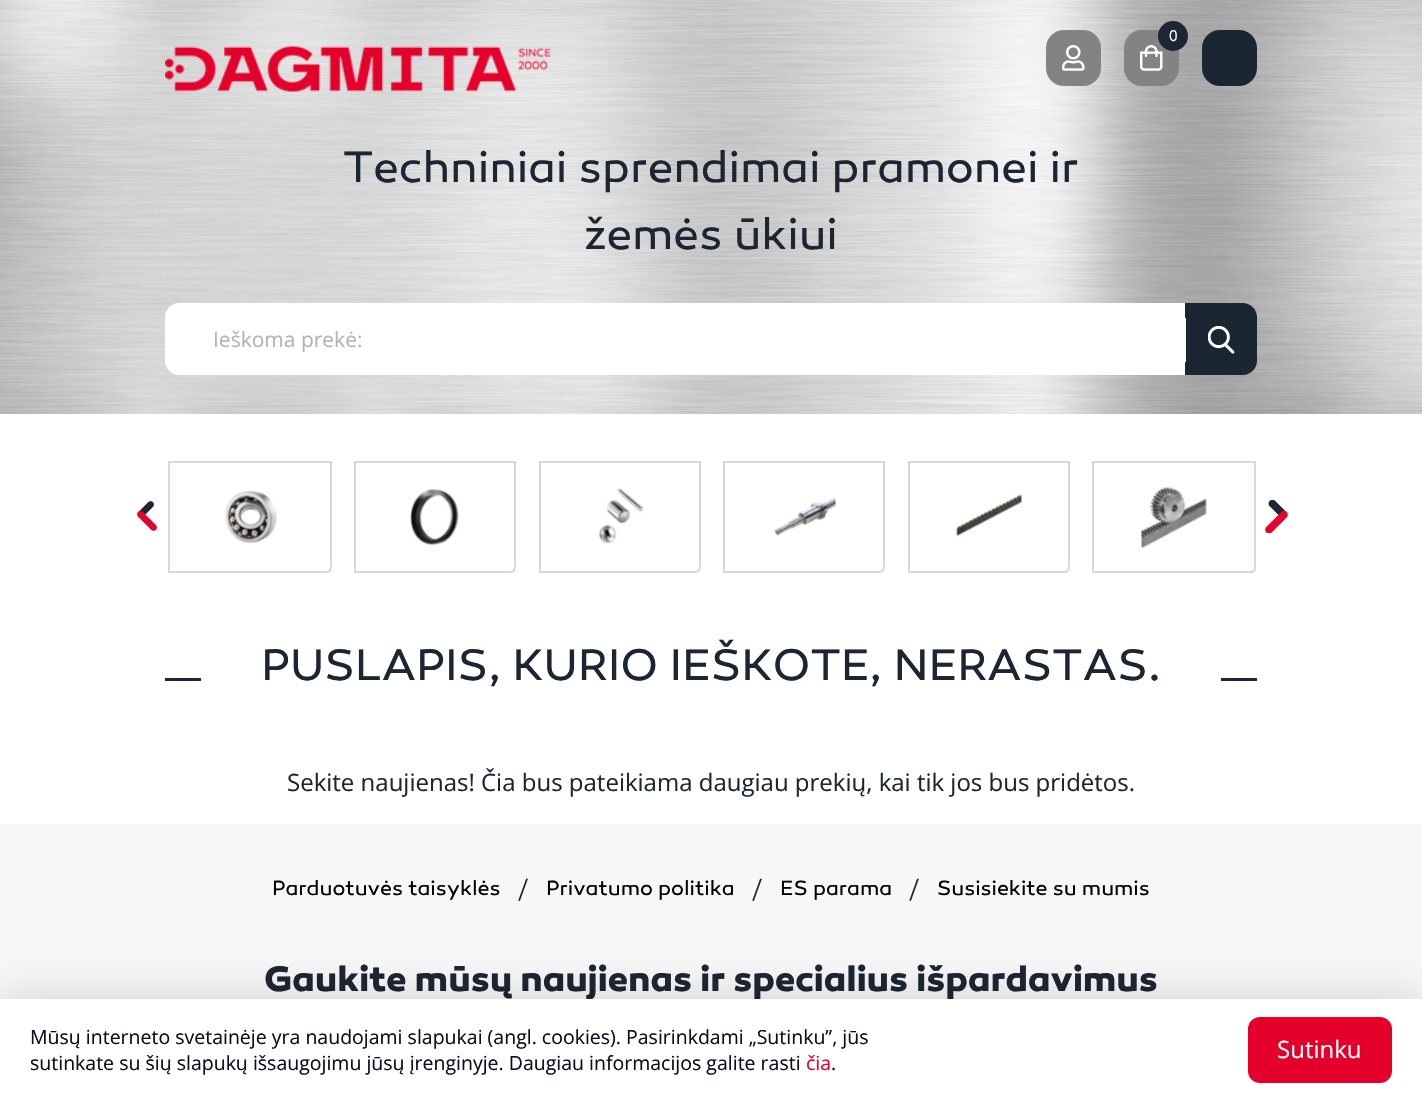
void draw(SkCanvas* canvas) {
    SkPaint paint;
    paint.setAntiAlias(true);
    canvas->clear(0xFFFFFFFF);
    canvas->drawImageRect(SkImages::DeferredFromEncodedData(SkData::MakeFromFileName("img1.png")), SkRect::MakeXYWH(0, 0, 1422, 414), SkSamplingOptions());
    paint.setColor(0xFF838383);
    canvas->drawRoundRect(SkRect::MakeXYWH(1046, 30, 55, 56), 18, 18, paint);
    canvas->drawImageRect(SkImages::DeferredFromEncodedData(SkData::MakeFromFileName("img2.png")), SkRect::MakeXYWH(1062, 45, 23, 26), SkSamplingOptions());
    canvas->drawRoundRect(SkRect::MakeXYWH(1124, 30, 55, 56), 18, 18, paint);
    canvas->drawImageRect(SkImages::DeferredFromEncodedData(SkData::MakeFromFileName("img3.png")), SkRect::MakeXYWH(1140, 45, 23, 26), SkSamplingOptions());
    paint.setColor(0xFF1C2733);
    canvas->drawCircle(1173, 36, 15, paint);
    SkFont font1(fontMgr->matchFamilyStyle("Open Sans", SkFontStyle::Normal()), 15);
    font1.setSubpixel(true);
    paint.setColor(0xFFFFFFFF);
    canvas->drawString("0", 1169, 41, font1, paint);
    paint.setColor(0xFF1B2633);
    canvas->drawRoundRect(SkRect::MakeXYWH(1202, 30, 55, 56), 18, 18, paint);
    canvas->drawImageRect(SkImages::DeferredFromEncodedData(SkData::MakeFromFileName("img4.png")), SkRect::MakeXYWH(165, 46, 386, 46), SkSamplingOptions());
    SkFont font2(fontMgr->matchFamilyStyle("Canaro", SkFontStyle::Normal()), 45);
    font2.setSubpixel(true);
    paint.setColor(0xFF1C2633);
    canvas->drawString("Techniniai sprendimai pramonei ir", 343, 182, font2, paint);
    canvas->drawString("žemės ūkiui", 584, 249, font2, paint);
    paint.setColor(0xFFFFFFFF);
    canvas->drawPath(SkPathBuilder().moveTo(179, 303).lineTo(1185, 303).lineTo(1185, 375).lineTo(179, 375).cubicTo(171.5f, 375, 165, 368.5f, 165, 361).lineTo(165, 317).cubicTo(165, 309.5f, 171.5f, 303, 179, 303).close().detach(), paint);
    SkFont font3(fontMgr->matchFamilyStyle("Open Sans", SkFontStyle::Normal()), 21);
    font3.setSubpixel(true);
    paint.setColor(0xFFB2B3B3);
    canvas->drawString("Ieškoma prekė:", 213, 347, font3, paint);
    paint.setColor(0xFF1B2633);
    canvas->drawPath(SkPathBuilder().moveTo(1185, 303).lineTo(1243, 303).cubicTo(1250.5f, 303, 1257, 309.5f, 1257, 317).lineTo(1257, 361).cubicTo(1257, 368.5f, 1250.5f, 375, 1243, 375).lineTo(1185, 375).close().detach(), paint);
    canvas->drawImageRect(SkImages::DeferredFromEncodedData(SkData::MakeFromFileName("img5.png")), SkRect::MakeXYWH(1208, 326, 27, 28), SkSamplingOptions());
    paint.setColor(0xFFFFFFFF);
    canvas->drawRect(SkRect::MakeXYWH(1185, 318, 1, 44), paint);
    paint.setStyle(SkPaint::kStroke_Style);
    paint.setStrokeWidth(2);
    paint.setColor(0xFFD9D9D9);
    canvas->drawPath(SkPathBuilder().moveTo(169, 462).lineTo(331, 462).lineTo(331, 567).cubicTo(331, 570, 329, 572, 326, 572).lineTo(169, 572).close().detach(), paint);
    canvas->drawImageRect(SkImages::DeferredFromEncodedData(SkData::MakeFromFileName("img6.png")), SkRect::MakeXYWH(225, 491, 53, 53), SkSamplingOptions());
    canvas->drawPath(SkPathBuilder().moveTo(355, 462).lineTo(515, 462).lineTo(515, 567).cubicTo(515, 570, 513, 572, 510, 572).lineTo(355, 572).close().detach(), paint);
    canvas->drawImageRect(SkImages::DeferredFromEncodedData(SkData::MakeFromFileName("img7.png")), SkRect::MakeXYWH(410, 489, 49, 57), SkSamplingOptions());
    canvas->drawPath(SkPathBuilder().moveTo(540, 462).lineTo(700, 462).lineTo(700, 567).cubicTo(700, 570, 698, 572, 695, 572).lineTo(540, 572).close().detach(), paint);
    canvas->drawImageRect(SkImages::DeferredFromEncodedData(SkData::MakeFromFileName("img8.png")), SkRect::MakeXYWH(599, 488, 45, 56), SkSamplingOptions());
    canvas->drawPath(SkPathBuilder().moveTo(724, 462).lineTo(884, 462).lineTo(884, 567).cubicTo(884, 570, 882, 572, 879, 572).lineTo(724, 572).close().detach(), paint);
    canvas->drawImageRect(SkImages::DeferredFromEncodedData(SkData::MakeFromFileName("img9.png")), SkRect::MakeXYWH(774, 497, 62, 39), SkSamplingOptions());
    canvas->drawPath(SkPathBuilder().moveTo(909, 462).lineTo(1069, 462).lineTo(1069, 567).cubicTo(1069, 570, 1067, 572, 1064, 572).lineTo(909, 572).close().detach(), paint);
    canvas->drawImageRect(SkImages::DeferredFromEncodedData(SkData::MakeFromFileName("img10.png")), SkRect::MakeXYWH(956, 494, 66, 43), SkSamplingOptions());
    canvas->drawPath(SkPathBuilder().moveTo(1093, 462).lineTo(1255, 462).lineTo(1255, 567).cubicTo(1255, 570, 1253, 572, 1250, 572).lineTo(1093, 572).close().detach(), paint);
    canvas->drawImageRect(SkImages::DeferredFromEncodedData(SkData::MakeFromFileName("img11.png")), SkRect::MakeXYWH(1141, 486, 66, 62), SkSamplingOptions());
    canvas->drawImageRect(SkImages::DeferredFromEncodedData(SkData::MakeFromFileName("img12.png")), SkRect::MakeXYWH(137, 501, 20, 30), SkSamplingOptions());
    canvas->drawImageRect(SkImages::DeferredFromEncodedData(SkData::MakeFromFileName("img13.png")), SkRect::MakeXYWH(1265, 500, 23, 33), SkSamplingOptions());
    paint.setStyle(SkPaint::kFill_Style);
    paint.setColor(0xFF242038);
    canvas->drawRect(SkRect::MakeXYWH(165, 678, 1092, 3), paint);
    paint.setColor(0xFFFFFFFF);
    canvas->drawRect(SkRect::MakeXYWH(201, 678, 1020, 3), paint);
    paint.setColor(0xFF1C2633);
    canvas->drawString("PUSLAPIS, KURIO IEŠKOTE, NERASTAS.", 261, 680, font2, paint);
    SkFont font4(fontMgr->matchFamilyStyle("Open Sans", SkFontStyle::Normal()), 24);
    font4.setSubpixel(true);
    canvas->drawString("Sekite naujienas! Čia bus pateikiama daugiau prekių, kai tik jos bus pridėtos.", 287, 791, font4, paint);
    paint.setColor(0xFFF7F7F7);
    canvas->drawRect(SkRect::MakeXYWH(0, 824, 1422, 175), paint);
    SkFont font5(fontMgr->matchFamilyStyle("Canaro", SkFontStyle::Normal()), 21);
    font5.setSubpixel(true);
    paint.setColor(0xFF000000);
    canvas->drawString("Parduotuvės taisyklės", 272, 895, font5, paint);
    paint.setColor(0xFF1C2633);
    canvas->drawString("/", 518, 895, font5, paint);
    paint.setColor(0xFF000000);
    canvas->drawString("Privatumo politika", 546, 895, font5, paint);
    paint.setColor(0xFF1C2633);
    canvas->drawString("/", 752, 895, font5, paint);
    paint.setColor(0xFF000000);
    canvas->drawString("ES parama", 780, 895, font5, paint);
    paint.setColor(0xFF1C2633);
    canvas->drawString("/", 909, 895, font5, paint);
    paint.setColor(0xFF000000);
    canvas->drawString("Susisiekite su mumis", 937, 895, font5, paint);
    SkFont font6(fontMgr->matchFamilyStyle("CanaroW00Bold", SkFontStyle::Bold()), 36);
    font6.setSubpixel(true);
    paint.setColor(0xFF1C2633);
    canvas->drawString("Gaukite mūsų naujienas ir specialius išpardavimus", 264, 991, font6, paint);
    paint.setColor(0x29000000);
    paint.setMaskFilter(SkMaskFilter::MakeBlur(kNormal_SkBlurStyle, 22.5f));
    canvas->drawRect(SkRect::MakeXYWH(0, 999, 1422, 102), paint);
    paint.setMaskFilter(nullptr);
    paint.setColor(0xFFFFFFFF);
    canvas->drawRect(SkRect::MakeXYWH(0, 999, 1422, 101), paint);
    SkFont font7(fontMgr->matchFamilyStyle("Open Sans", SkFontStyle::Normal()), 19.5f);
    font7.setSubpixel(true);
    paint.setColor(0xFF0D0C22);
    canvas->drawString("Mūsų interneto svetainėje yra naudojami slapukai (angl. cookies). Pasirinkdami „Sutinku”, jūs", 30, 1044, font7, paint);
    canvas->drawString("sutinkate su šių slapukų išsaugojimu jūsų įrenginyje. Daugiau informacijos galite rasti", 30, 1070, font7, paint);
    paint.setColor(0xFFE4002B);
    canvas->drawString("čia", 806, 1070, font7, paint);
    paint.setColor(0xFF0D0C22);
    canvas->drawString(".", 831, 1070, font7, paint);
    paint.setColor(0xFFE4002B);
    canvas->drawRoundRect(SkRect::MakeXYWH(1248, 1017, 144, 66), 12, 12, paint);
    paint.setColor(0xFFFFFFFF);
    canvas->drawString("Sutinku", 1277, 1058, font4, paint);
}
